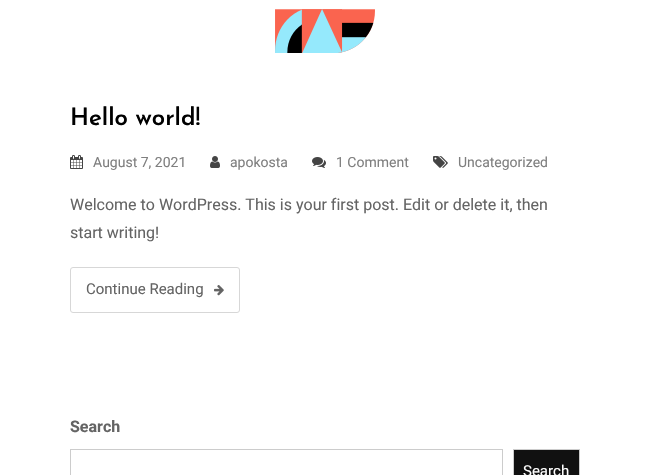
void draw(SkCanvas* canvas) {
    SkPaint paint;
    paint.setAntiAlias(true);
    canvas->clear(0xFFFFFFFF);
    canvas->drawImageRect(SkImages::DeferredFromEncodedData(SkData::MakeFromFileName("img1.png")), SkRect::MakeXYWH(275, 9, 100, 44), SkSamplingOptions());
    SkFont font1(fontMgr->matchFamilyStyle("Josefin Sans", SkFontStyle(600, SkFontStyle::kNormal_Width, SkFontStyle::kUpright_Slant)), 24);
    font1.setSubpixel(true);
    paint.setColor(0xFF000000);
    canvas->drawString("Hello world!", 70, 125, font1, paint);
    canvas->drawImageRect(SkImages::DeferredFromEncodedData(SkData::MakeFromFileName("img2.png")), SkRect::MakeXYWH(70, 155, 13, 14), SkSamplingOptions());
    SkFont font2(fontMgr->matchFamilyStyle("Roboto", SkFontStyle::Normal()), 14);
    font2.setSubpixel(true);
    paint.setColor(0xFF7F7F7F);
    canvas->drawString("August 7, 2021", 93, 167, font2, paint);
    canvas->drawImageRect(SkImages::DeferredFromEncodedData(SkData::MakeFromFileName("img3.png")), SkRect::MakeXYWH(210, 156, 10, 12), SkSamplingOptions());
    canvas->drawString("apokosta", 230, 167, font2, paint);
    canvas->drawImageRect(SkImages::DeferredFromEncodedData(SkData::MakeFromFileName("img4.png")), SkRect::MakeXYWH(312, 157, 14, 11), SkSamplingOptions());
    canvas->drawString("1 Comment", 336, 167, font2, paint);
    canvas->drawImageRect(SkImages::DeferredFromEncodedData(SkData::MakeFromFileName("img5.png")), SkRect::MakeXYWH(433, 156, 15, 12), SkSamplingOptions());
    canvas->drawString("Uncategorized", 458, 167, font2, paint);
    SkFont font3(fontMgr->matchFamilyStyle("Roboto", SkFontStyle::Normal()), 16);
    font3.setSubpixel(true);
    paint.setColor(0xFF646464);
    canvas->drawString("Welcome to WordPress. This is your first post. Edit or delete it, then", 70, 210, font3, paint);
    canvas->drawString("start writing!", 70, 238, font3, paint);
    paint.setStyle(SkPaint::kStroke_Style);
    paint.setStrokeWidth(1);
    paint.setColor(0xFFD7D7D7);
    canvas->drawRoundRect(SkRect::MakeXYWH(70.5f, 267.5f, 169, 45), 2.5f, 2.5f, paint);
    SkFont font4(fontMgr->matchFamilyStyle("Roboto", SkFontStyle::Normal()), 15);
    font4.setSubpixel(true);
    paint.setStyle(SkPaint::kFill_Style);
    paint.setColor(0xFF646464);
    canvas->drawString("Continue Reading", 86, 294, font4, paint);
    canvas->drawImageRect(SkImages::DeferredFromEncodedData(SkData::MakeFromFileName("img6.png")), SkRect::MakeXYWH(214, 285, 10, 11), SkSamplingOptions());
    SkFont font5(fontMgr->matchFamilyStyle("Roboto", SkFontStyle::Bold()), 16);
    font5.setSubpixel(true);
    canvas->drawString("Search", 70, 432, font5, paint);
    paint.setStyle(SkPaint::kStroke_Style);
    paint.setColor(0xFFCCCCCC);
    canvas->drawRect(SkRect::MakeXYWH(70.5f, 449.5f, 432, 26), paint);
    paint.setStyle(SkPaint::kFill_Style);
    paint.setColor(0xFF111111);
    canvas->drawRect(SkRect::MakeXYWH(513.5f, 449.5f, 66, 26), paint);
    paint.setStyle(SkPaint::kStroke_Style);
    paint.setColor(0xFFCCCCCC);
    canvas->drawRect(SkRect::MakeXYWH(513.5f, 449.5f, 66, 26), paint);
    paint.setStyle(SkPaint::kFill_Style);
    paint.setColor(0xFFFFFFFF);
    canvas->drawString("Search", 523, 476, font4, paint);
}
